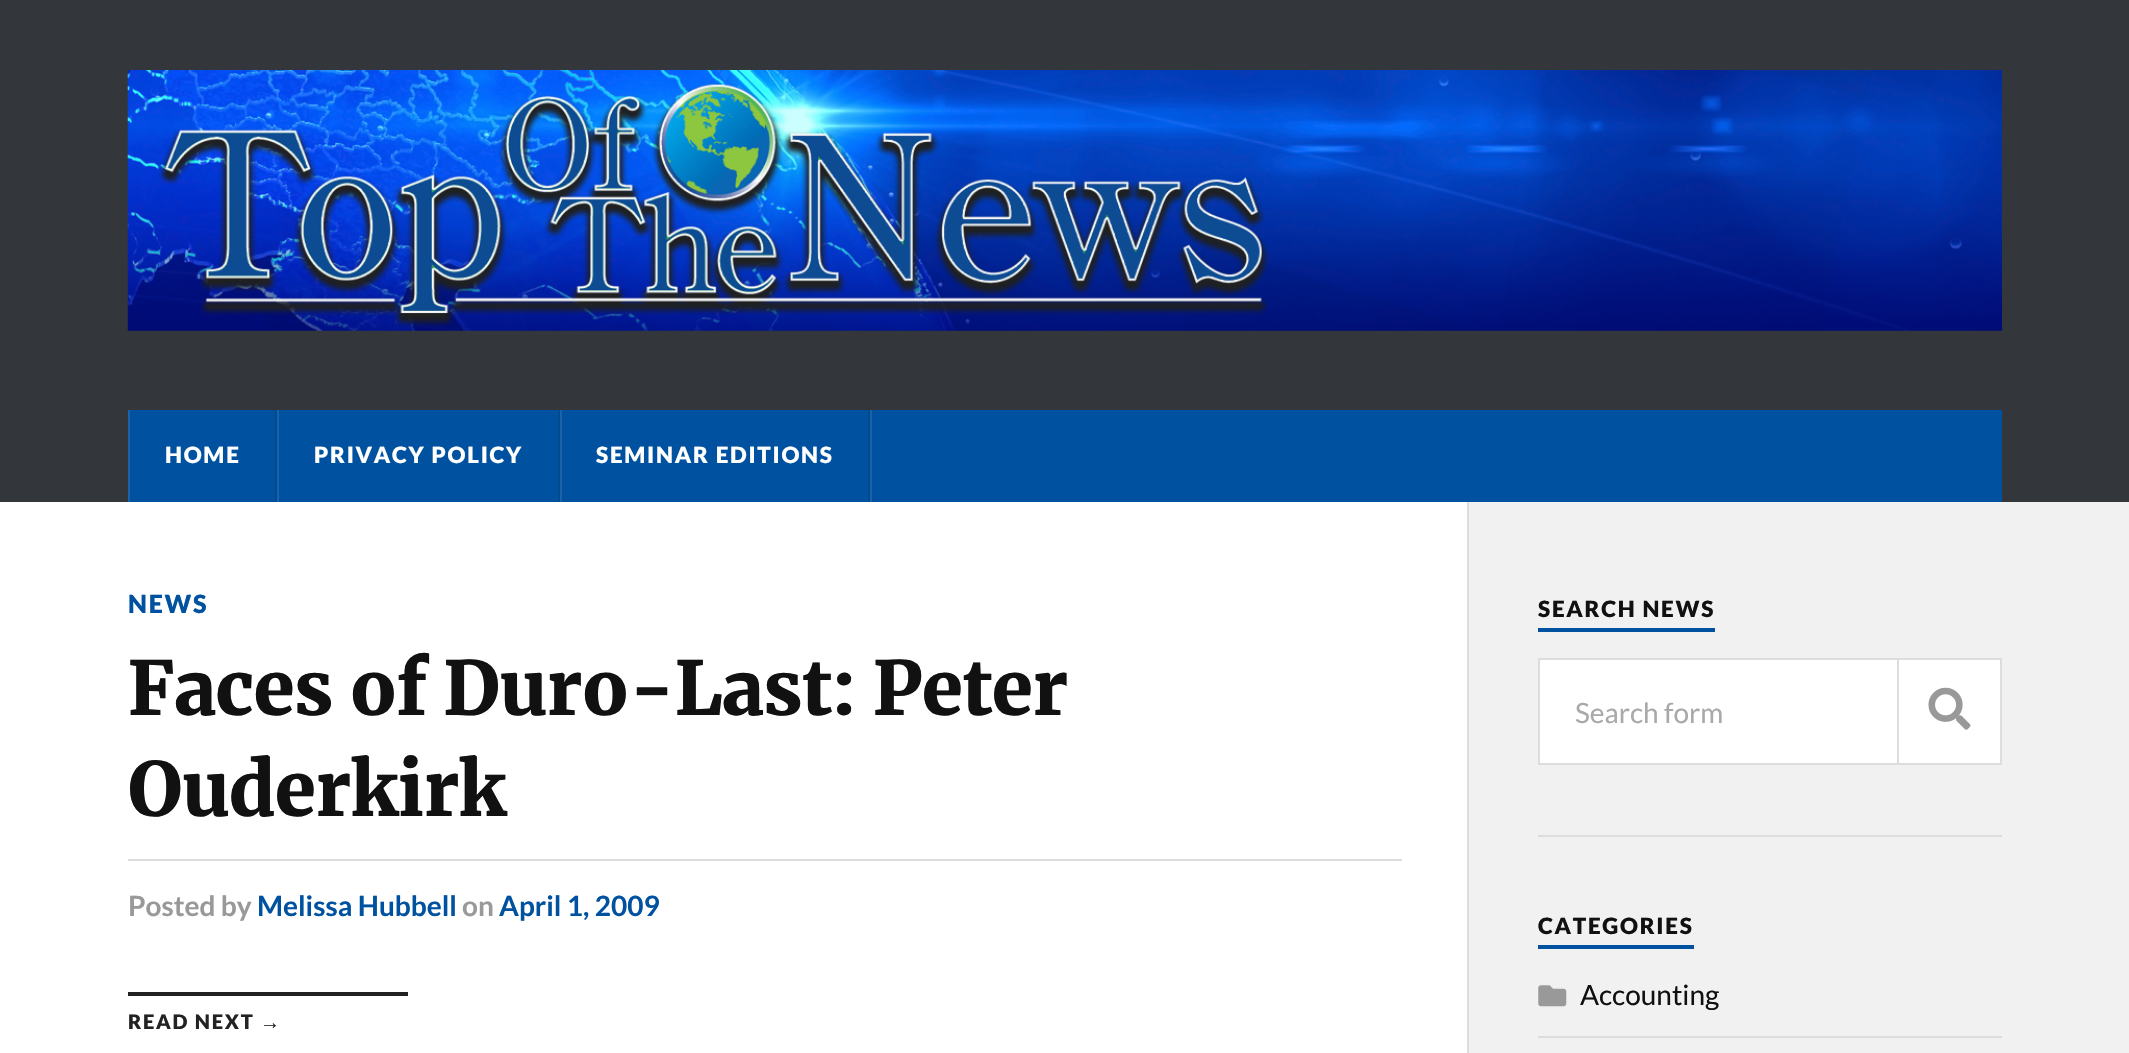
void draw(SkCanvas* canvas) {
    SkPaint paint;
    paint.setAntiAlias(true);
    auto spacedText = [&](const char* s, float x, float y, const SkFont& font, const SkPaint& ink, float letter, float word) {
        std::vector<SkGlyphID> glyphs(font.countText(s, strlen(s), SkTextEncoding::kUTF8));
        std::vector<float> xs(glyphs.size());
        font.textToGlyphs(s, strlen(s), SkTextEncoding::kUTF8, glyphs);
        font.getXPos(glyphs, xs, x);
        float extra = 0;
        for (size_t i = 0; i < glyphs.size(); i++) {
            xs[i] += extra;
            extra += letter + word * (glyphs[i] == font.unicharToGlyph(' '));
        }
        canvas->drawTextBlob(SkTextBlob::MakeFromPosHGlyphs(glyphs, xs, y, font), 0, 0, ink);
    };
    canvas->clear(0xFFF1F1F1);
    paint.setColor(0xFF33363B);
    canvas->drawRect(SkRect::MakeXYWH(0, 0, 2129, 502), paint);
    canvas->drawImageRect(SkImages::DeferredFromEncodedData(SkData::MakeFromFileName("img1.png")), SkRect::MakeXYWH(127, 70, 1875, 261), SkSamplingOptions());
    paint.setColor(0xFF0052A0);
    canvas->drawRect(SkRect::MakeXYWH(130, 410, 1872, 92), paint);
    paint.setColor(0xFF004A90);
    canvas->drawRect(SkRect::MakeXYWH(275, 410, 2, 92), paint);
    paint.setColor(0xFF1A63AA);
    canvas->drawRect(SkRect::MakeXYWH(128, 410, 2, 92), paint);
    SkFont font1(fontMgr->matchFamilyStyle("Lato", SkFontStyle(900, SkFontStyle::kNormal_Width, SkFontStyle::kUpright_Slant)), 22.4f);
    font1.setSubpixel(true);
    paint.setColor(0xFFFFFFFF);
    spacedText("HOME", 165, 463, font1, paint, 1.75f, 0);
    paint.setColor(0xFF004A90);
    canvas->drawRect(SkRect::MakeXYWH(558, 410, 2, 92), paint);
    paint.setColor(0xFF1A63AA);
    canvas->drawRect(SkRect::MakeXYWH(277, 410, 2, 92), paint);
    paint.setColor(0xFFFFFFFF);
    spacedText("PRIVACY POLICY", 314, 463, font1, paint, 1.75f, 0);
    paint.setColor(0xFF004A90);
    canvas->drawRect(SkRect::MakeXYWH(868, 410, 2, 92), paint);
    paint.setColor(0xFF1A63AA);
    canvas->drawRect(SkRect::MakeXYWH(560, 410, 2, 92), paint);
    paint.setColor(0xFFFFFFFF);
    spacedText("SEMINAR EDITIONS", 596, 463, font1, paint, 1.75f, 0);
    paint.setColor(0xFF1A63AA);
    canvas->drawRect(SkRect::MakeXYWH(870, 410, 2, 92), paint);
    paint.setColor(0xFFFFFFFF);
    canvas->drawRect(SkRect::MakeXYWH(0, 502, 1467, 551), paint);
    SkFont font2(fontMgr->matchFamilyStyle("Lato", SkFontStyle(900, SkFontStyle::kNormal_Width, SkFontStyle::kUpright_Slant)), 25);
    font2.setSubpixel(true);
    paint.setColor(0xFF0052A0);
    spacedText("NEWS", 128, 613, font2, paint, 1.75f, 0);
    SkFont font3(fontMgr->matchFamilyStyle("Merriweather", SkFontStyle(900, SkFontStyle::kNormal_Width, SkFontStyle::kUpright_Slant)), 74.4f);
    font3.setSubpixel(true);
    paint.setColor(0xFF111111);
    spacedText("Faces of Duro-Last: Peter", 128, 715, font3, paint, -0.75f, 0);
    spacedText("Ouderkirk", 128, 816, font3, paint, -0.75f, 0);
    paint.setColor(0xFFDDDDDD);
    canvas->drawRect(SkRect::MakeXYWH(128, 859, 1274, 2), paint);
    SkFont font4(fontMgr->matchFamilyStyle("Lato", SkFontStyle::Bold()), 28);
    font4.setSubpixel(true);
    paint.setColor(0xFF999999);
    canvas->drawString("Posted by", 128, 916, font4, paint);
    paint.setColor(0xFF0052A0);
    canvas->drawString("Melissa Hubbell", 257, 916, font4, paint);
    paint.setColor(0xFF999999);
    canvas->drawString("on", 462, 916, font4, paint);
    paint.setColor(0xFF0052A0);
    canvas->drawString("April 1, 2009", 499, 916, font4, paint);
    paint.setColor(0xFF222222);
    canvas->drawRect(SkRect::MakeXYWH(128, 992, 280, 4), paint);
    SkFont font5(fontMgr->matchFamilyStyle("Lato", SkFontStyle(900, SkFontStyle::kNormal_Width, SkFontStyle::kUpright_Slant)), 20);
    font5.setSubpixel(true);
    spacedText("READ NEXT", 128, 1029, font5, paint, 1.75f, 0);
    SkFont font6(fontMgr->matchFamilyStyle("Liberation Sans", SkFontStyle::Bold()), 20);
    font6.setSubpixel(true);
    spacedText("→", 260, 1029, font6, paint, 1.75f, 0);
    paint.setColor(0xFFDDDDDD);
    canvas->drawRect(SkRect::MakeXYWH(1467, 502, 2, 551), paint);
    paint.setColor(0xFF0052A0);
    canvas->drawRect(SkRect::MakeXYWH(1538, 628, 177, 4), paint);
    paint.setColor(0xFF111111);
    spacedText("SEARCH NEWS", 1538, 617, font1, paint, 1.75f, 0);
    paint.setColor(0xFFFFFFFF);
    canvas->drawRect(SkRect::MakeXYWH(1539, 659, 462, 105), paint);
    paint.setStyle(SkPaint::kStroke_Style);
    paint.setStrokeWidth(2);
    paint.setColor(0xFFDDDDDD);
    canvas->drawRect(SkRect::MakeXYWH(1539, 659, 462, 105), paint);
    SkFont font7(fontMgr->matchFamilyStyle("Lato", SkFontStyle::Normal()), 28);
    font7.setSubpixel(true);
    paint.setStyle(SkPaint::kFill_Style);
    paint.setColor(0xFFA9A9A9);
    canvas->drawString("Search form", 1575, 723, font7, paint);
    paint.setColor(0xFFDDDDDD);
    canvas->drawRect(SkRect::MakeXYWH(1897, 660, 2, 103), paint);
    canvas->drawImageRect(SkImages::DeferredFromEncodedData(SkData::MakeFromFileName("img2.png")), SkRect::MakeXYWH(1928, 687, 43, 43), SkSamplingOptions());
    canvas->drawRect(SkRect::MakeXYWH(1538, 835, 464, 2), paint);
    paint.setColor(0xFF0052A0);
    canvas->drawRect(SkRect::MakeXYWH(1538, 945, 156, 4), paint);
    paint.setColor(0xFF111111);
    spacedText("CATEGORIES", 1538, 934, font1, paint, 1.75f, 0);
    paint.setColor(0xFFDDDDDD);
    canvas->drawRect(SkRect::MakeXYWH(1538, 1036, 464, 2), paint);
    canvas->drawImageRect(SkImages::DeferredFromEncodedData(SkData::MakeFromFileName("img3.png")), SkRect::MakeXYWH(1538, 985, 29, 22), SkSamplingOptions());
    paint.setColor(0xFF111111);
    canvas->drawString("Accounting", 1580, 1005, font7, paint);
}
